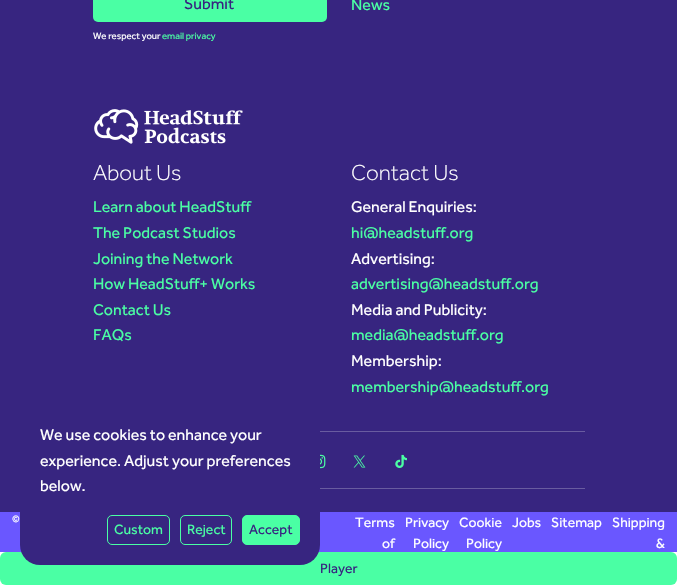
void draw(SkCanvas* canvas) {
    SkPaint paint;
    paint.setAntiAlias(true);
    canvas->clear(0xFFFFFFFF);
    paint.setColor(0xFF372580);
    canvas->drawRect(SkRect::MakeXYWH(0, 0, 677, 512), paint);
    paint.setColor(0xFF4AFFA4);
    canvas->drawRoundRect(SkRect::MakeXYWH(93, -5, 234, 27), 5, 5, paint);
    SkFont font1(fontMgr->matchFamilyStyle("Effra", SkFontStyle::Normal()), 16);
    font1.setSubpixel(true);
    paint.setColor(0xFF372580);
    canvas->drawString("Submit", 184, 9, font1, paint);
    SkFont font2(fontMgr->matchFamilyStyle("Effra", SkFontStyle::Normal()), 9.5f);
    font2.setSubpixel(true);
    paint.setColor(0xFFFFFFFF);
    canvas->drawString("We respect your", 93, 39, font2, paint);
    paint.setColor(0xFF4AFFA4);
    canvas->drawString("email privacy", 162, 39, font2, paint);
    canvas->drawImageRect(SkImages::DeferredFromEncodedData(SkData::MakeFromFileName("img1.png")), SkRect::MakeXYWH(94, 109, 149, 35), SkSamplingOptions());
    canvas->drawString("News", 351, 10, font1, paint);
    SkFont font3(fontMgr->matchFamilyStyle("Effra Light", SkFontStyle(300, SkFontStyle::kNormal_Width, SkFontStyle::kUpright_Slant)), 22.5f);
    font3.setSubpixel(true);
    paint.setColor(0xFFFFFFFF);
    canvas->drawString("About Us", 93, 180, font3, paint);
    paint.setColor(0xFF4AFFA4);
    canvas->drawString("Learn about HeadStuff", 93, 212, font1, paint);
    canvas->drawString("The Podcast Studios", 93, 238, font1, paint);
    canvas->drawString("Joining the Network", 93, 264, font1, paint);
    canvas->drawString("How HeadStuff+ Works", 93, 289, font1, paint);
    canvas->drawString("Contact Us", 93, 315, font1, paint);
    canvas->drawString("FAQs", 93, 340, font1, paint);
    paint.setColor(0xFFFFFFFF);
    canvas->drawString("Contact Us", 351, 180, font3, paint);
    canvas->drawString("General Enquiries:", 351, 212, font1, paint);
    paint.setColor(0xFF4AFFA4);
    canvas->drawString("hi@headstuff.org", 351, 238, font1, paint);
    paint.setColor(0xFFFFFFFF);
    canvas->drawString("Advertising:", 351, 264, font1, paint);
    paint.setColor(0xFF4AFFA4);
    canvas->drawString("advertising@headstuff.org", 351, 289, font1, paint);
    paint.setColor(0xFFFFFFFF);
    canvas->drawString("Media and Publicity:", 351, 315, font1, paint);
    paint.setColor(0xFF4AFFA4);
    canvas->drawString("media@headstuff.org", 351, 340, font1, paint);
    paint.setColor(0xFFFFFFFF);
    canvas->drawString("Membership:", 351, 366, font1, paint);
    paint.setColor(0xFF4AFFA4);
    canvas->drawString("membership@headstuff.org", 351, 392, font1, paint);
    paint.setColor(0xFF695CA0);
    canvas->drawRect(SkRect::MakeXYWH(320, 431, 265, 1), paint);
    canvas->drawImageRect(SkImages::DeferredFromEncodedData(SkData::MakeFromFileName("img2.png")), SkRect::MakeXYWH(320, 454, 6, 15), SkSamplingOptions());
    canvas->drawImageRect(SkImages::DeferredFromEncodedData(SkData::MakeFromFileName("img3.png")), SkRect::MakeXYWH(353, 455, 13, 13), SkSamplingOptions());
    canvas->drawImageRect(SkImages::DeferredFromEncodedData(SkData::MakeFromFileName("img4.png")), SkRect::MakeXYWH(395, 454, 12, 14), SkSamplingOptions());
    canvas->drawRect(SkRect::MakeXYWH(320, 488, 265, 1), paint);
    paint.setColor(0xFF6A57FF);
    canvas->drawRect(SkRect::MakeXYWH(0, 512, 677, 40), paint);
    paint.setColor(0xFF4AFFA4);
    canvas->drawRoundRect(SkRect::MakeXYWH(0, 552, 677, 33), 6, 6, paint);
    paint.setColor(0xFF372580);
    canvas->drawRoundRect(SkRect::MakeXYWH(20, 402, 300, 163), 20, 20, paint);
    paint.setColor(0xFFFFFFFF);
    canvas->drawString("We use cookies to enhance your", 40, 440, font1, paint);
    canvas->drawString("experience. Adjust your preferences", 40, 466, font1, paint);
    canvas->drawString("below.", 40, 491, font1, paint);
    paint.setStyle(SkPaint::kStroke_Style);
    paint.setStrokeWidth(1);
    paint.setColor(0xFF4AFFA4);
    canvas->drawRoundRect(SkRect::MakeXYWH(107.5f, 515.5f, 62, 29), 4.5f, 4.5f, paint);
    SkFont font4(fontMgr->matchFamilyStyle("Effra", SkFontStyle::Normal()), 14);
    font4.setSubpixel(true);
    paint.setStyle(SkPaint::kFill_Style);
    canvas->drawString("Custom", 114, 534, font4, paint);
    paint.setStyle(SkPaint::kStroke_Style);
    canvas->drawRoundRect(SkRect::MakeXYWH(180.5f, 515.5f, 51, 29), 4.5f, 4.5f, paint);
    paint.setStyle(SkPaint::kFill_Style);
    canvas->drawString("Reject", 187, 534, font4, paint);
    canvas->drawRoundRect(SkRect::MakeXYWH(242.5f, 515.5f, 57, 29), 4.5f, 4.5f, paint);
    paint.setStyle(SkPaint::kStroke_Style);
    canvas->drawRoundRect(SkRect::MakeXYWH(242.5f, 515.5f, 57, 29), 4.5f, 4.5f, paint);
    paint.setStyle(SkPaint::kFill_Style);
    paint.setColor(0xFF372580);
    canvas->drawString("Accept", 249, 534, font4, paint);
    paint.setColor(0xFFFFFFFF);
    canvas->drawString("©", 12, 522, font2, paint);
    canvas->drawString("Terms", 355, 527, font4, paint);
    canvas->drawString("of", 382, 548, font4, paint);
    canvas->drawString("Privacy", 405, 527, font4, paint);
    canvas->drawString("Policy", 413, 548, font4, paint);
    canvas->drawString("Cookie", 459, 527, font4, paint);
    canvas->drawString("Policy", 466, 548, font4, paint);
    canvas->drawString("Jobs", 512, 527, font4, paint);
    canvas->drawString("Sitemap", 551, 527, font4, paint);
    canvas->drawString("Shipping", 612, 527, font4, paint);
    canvas->drawString("&", 656, 548, font4, paint);
    paint.setColor(0xFF372580);
    canvas->drawString("Player", 320, 573, font4, paint);
}
